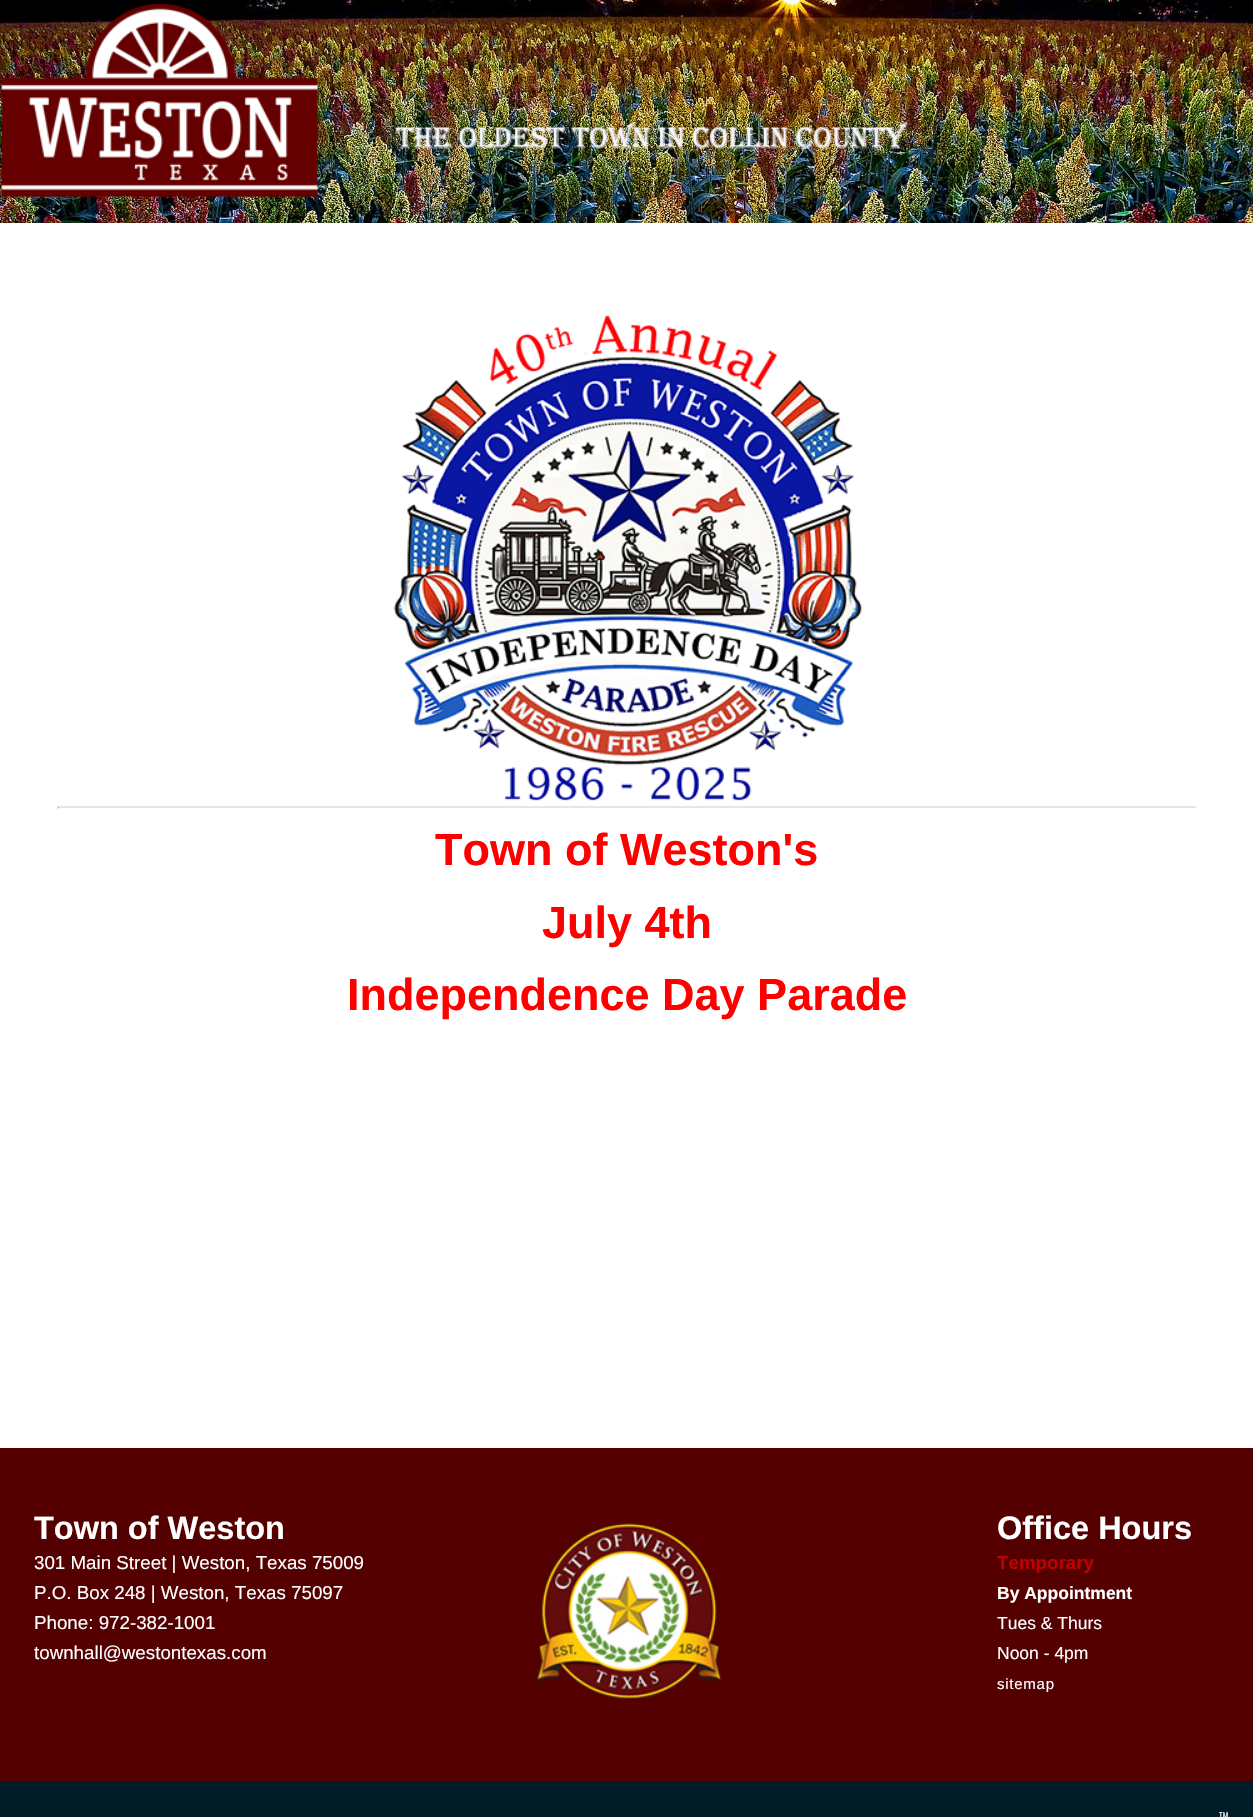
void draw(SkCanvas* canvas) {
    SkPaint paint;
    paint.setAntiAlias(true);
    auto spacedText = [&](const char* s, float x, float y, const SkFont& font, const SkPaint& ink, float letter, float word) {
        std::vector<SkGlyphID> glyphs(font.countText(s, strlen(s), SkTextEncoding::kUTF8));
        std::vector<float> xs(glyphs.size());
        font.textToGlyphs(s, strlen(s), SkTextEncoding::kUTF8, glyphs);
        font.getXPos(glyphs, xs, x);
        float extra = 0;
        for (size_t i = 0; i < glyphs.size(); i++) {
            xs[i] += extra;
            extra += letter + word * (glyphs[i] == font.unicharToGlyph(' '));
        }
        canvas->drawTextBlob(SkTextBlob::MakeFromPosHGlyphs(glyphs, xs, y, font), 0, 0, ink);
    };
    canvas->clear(0xFF001C27);
    canvas->drawImageRect(SkImages::DeferredFromEncodedData(SkData::MakeFromFileName("img1.png")), SkRect::MakeXYWH(0, 0, 1253, 223), SkSamplingOptions());
    canvas->drawImageRect(SkImages::DeferredFromEncodedData(SkData::MakeFromFileName("img2.png")), SkRect::MakeXYWH(1, 3, 907, 195), SkSamplingOptions());
    paint.setColor(0xFFFFFFFF);
    canvas->drawRect(SkRect::MakeXYWH(0, 223, 1253, 1225), paint);
    canvas->drawImageRect(SkImages::DeferredFromEncodedData(SkData::MakeFromFileName("img3.png")), SkRect::MakeXYWH(393, 315, 469, 486), SkSamplingOptions());
    paint.setColor(0xFFE6E6E6);
    canvas->drawPath(SkPathBuilder().moveTo(58, 806).lineTo(1196, 806).lineTo(1195, 808).lineTo(59, 808).close().detach(), paint);
    paint.setColor(0xFFEEEEEE);
    canvas->drawPath(SkPathBuilder().moveTo(1196, 806).lineTo(1196, 809).lineTo(1195, 807.5f).close().detach(), paint);
    paint.setColor(0xFF9F9F9F);
    canvas->drawPath(SkPathBuilder().moveTo(57.5f, 809).lineTo(57.5f, 806).lineTo(59, 807.5f).close().detach(), paint);
    SkFont font1(fontMgr->matchFamilyStyle("Liberation Sans", SkFontStyle::Bold()), 45);
    font1.setSubpixel(true);
    paint.setColor(0xFFFF0000);
    canvas->drawString("Town of Weston's", 435, 865, font1, paint);
    canvas->drawString("July 4th", 542, 938, font1, paint);
    canvas->drawString("Independence Day Parade", 347, 1010, font1, paint);
    paint.setColor(0xFF540001);
    canvas->drawRect(SkRect::MakeXYWH(0, 1448, 1253, 333), paint);
    canvas->drawImageRect(SkImages::DeferredFromEncodedData(SkData::MakeFromFileName("img4.png")), SkRect::MakeXYWH(536, 1523, 186, 176), SkSamplingOptions());
    SkFont font2(fontMgr->matchFamilyStyle("Liberation Sans", SkFontStyle::Bold()), 32.5f);
    font2.setSubpixel(true);
    paint.setColor(0xFFFFFFFF);
    canvas->drawString("Town of Weston", 34, 1539, font2, paint);
    SkFont font3(fontMgr->matchFamilyStyle("Liberation Sans", SkFontStyle::Normal()), 18.75f);
    font3.setSubpixel(true);
    canvas->drawString("301 Main Street | Weston, Texas 75009", 34, 1569, font3, paint);
    canvas->drawString("P.O. Box 248 | Weston, Texas 75097", 34, 1599, font3, paint);
    canvas->drawString("Phone: 972-382-1001", 34, 1629, font3, paint);
    canvas->drawString("townhall@westontexas.com", 34, 1659, font3, paint);
    canvas->drawString("Office Hours", 997, 1539, font2, paint);
    SkFont font4(fontMgr->matchFamilyStyle("Liberation Sans", SkFontStyle::Bold()), 18.75f);
    font4.setSubpixel(true);
    paint.setColor(0xFFC00000);
    canvas->drawString("Temporary", 997, 1569, font4, paint);
    SkFont font5(fontMgr->matchFamilyStyle("Liberation Sans", SkFontStyle::Bold()), 17.5f);
    font5.setSubpixel(true);
    paint.setColor(0xFFFFFFFF);
    canvas->drawString("By Appointment", 997, 1599, font5, paint);
    SkFont font6(fontMgr->matchFamilyStyle("Liberation Sans", SkFontStyle::Normal()), 17.5f);
    font6.setSubpixel(true);
    canvas->drawString("Tues & Thurs", 997, 1629, font6, paint);
    canvas->drawString("Noon - 4pm", 997, 1659, font6, paint);
    SkFont font7(fontMgr->matchFamilyStyle("Liberation Sans", SkFontStyle::Normal()), 15);
    font7.setSubpixel(true);
    spacedText("sitemap", 997, 1689, font7, paint, 0.75f, 0);
    SkFont font8(fontMgr->matchFamilyStyle("Myriad", SkFontStyle::Normal()), 10);
    font8.setSubpixel(true);
    canvas->drawString("TM", 1219, 1819, font8, paint);
}
